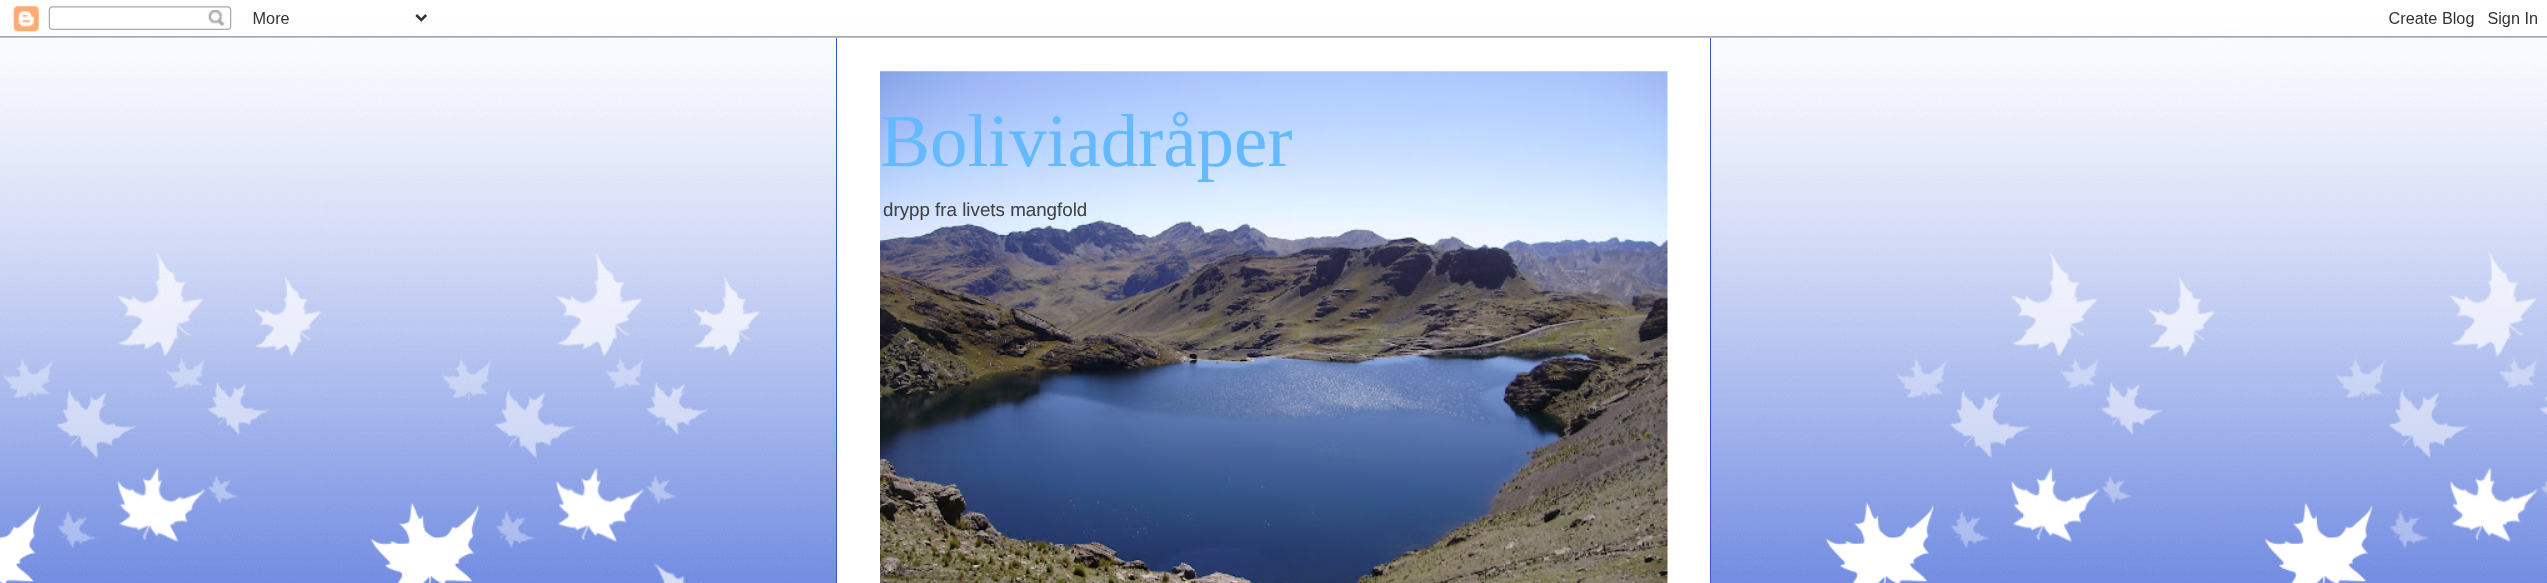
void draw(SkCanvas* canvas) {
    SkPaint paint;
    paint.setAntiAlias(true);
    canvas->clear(0xFF1A45CF);
    canvas->drawImageRect(SkImages::DeferredFromEncodedData(SkData::MakeFromFileName("img1.png")), SkRect::MakeXYWH(0, 0, 2547, 583), SkSamplingOptions());
    canvas->drawImageRect(SkImages::DeferredFromEncodedData(SkData::MakeFromFileName("img2.png")), SkRect::MakeXYWH(0, 6, 2547, 32), SkSamplingOptions());
    paint.setColor(0xFFFFFFFF);
    canvas->drawRect(SkRect::MakeXYWH(837, 38, 873, 545), paint);
    paint.setColor(0xFF3654D3);
    canvas->drawRect(SkRect::MakeXYWH(1710, 38, 1, 545), paint);
    canvas->drawRect(SkRect::MakeXYWH(836, 38, 1, 545), paint);
    canvas->drawImageRect(SkImages::DeferredFromEncodedData(SkData::MakeFromFileName("img3.png")), SkRect::MakeXYWH(880, 71, 788, 512), SkSamplingOptions());
    SkFont font1(fontMgr->matchFamilyStyle("Liberation Serif", SkFontStyle::Normal()), 75);
    font1.setSubpixel(true);
    paint.setColor(0xFF65B9FF);
    canvas->drawString("Boliviadråper", 880, 166, font1, paint);
    SkFont font2(fontMgr->matchFamilyStyle("Liberation Sans", SkFontStyle::Normal()), 18.75f);
    font2.setSubpixel(true);
    paint.setColor(0xFF434343);
    canvas->drawString("drypp fra livets mangfold", 883, 216, font2, paint);
}
